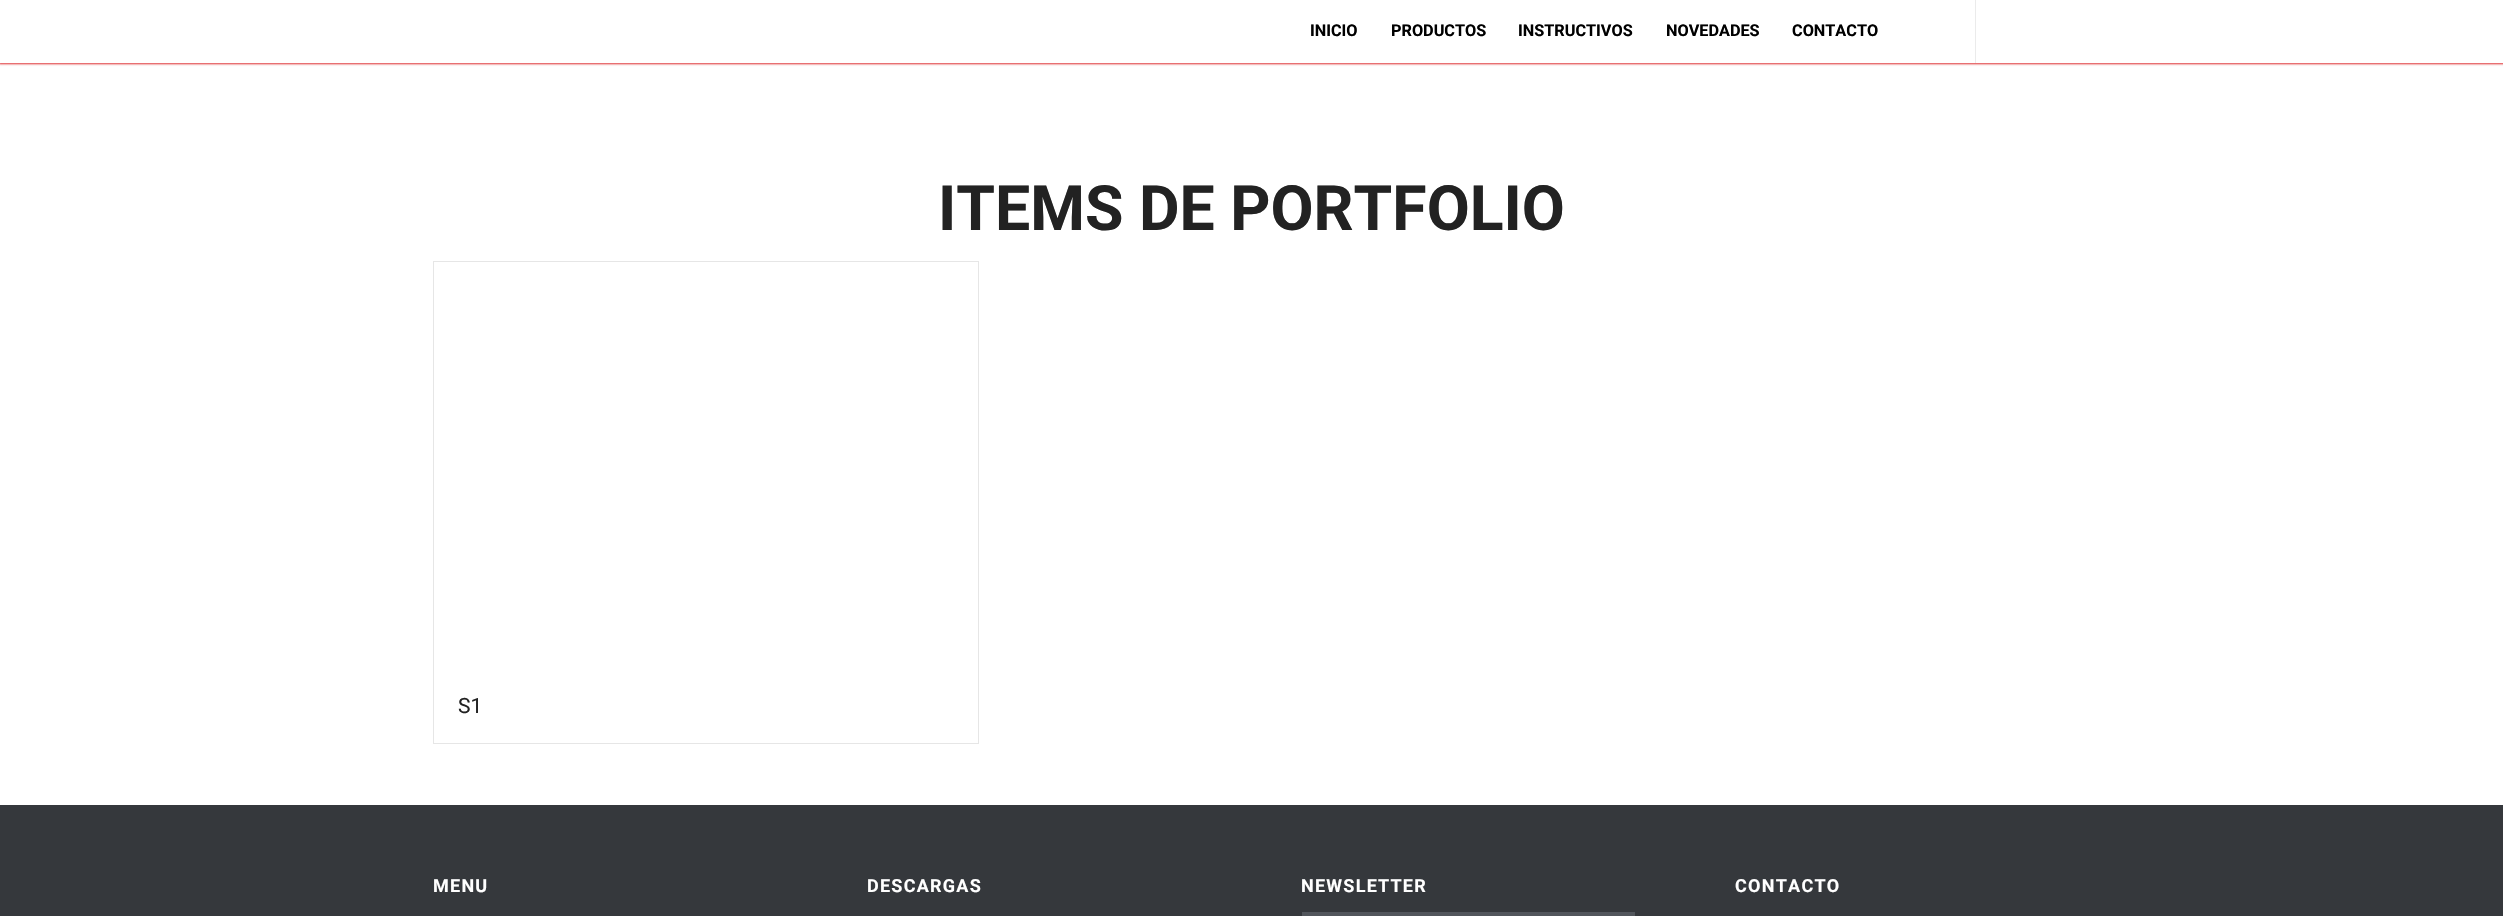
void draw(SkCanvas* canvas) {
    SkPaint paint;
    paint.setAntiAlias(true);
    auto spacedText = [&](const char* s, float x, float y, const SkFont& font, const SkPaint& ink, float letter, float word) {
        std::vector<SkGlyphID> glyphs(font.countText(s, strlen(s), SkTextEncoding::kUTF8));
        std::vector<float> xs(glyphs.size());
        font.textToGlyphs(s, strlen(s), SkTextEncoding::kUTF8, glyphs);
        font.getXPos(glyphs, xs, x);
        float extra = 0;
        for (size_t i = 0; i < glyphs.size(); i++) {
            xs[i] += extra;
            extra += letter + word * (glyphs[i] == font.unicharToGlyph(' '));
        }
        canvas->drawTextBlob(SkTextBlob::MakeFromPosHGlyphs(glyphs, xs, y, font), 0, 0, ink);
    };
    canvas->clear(0xFFFFFFFF);
    paint.setColor(0xFFDE2E30);
    paint.setMaskFilter(SkMaskFilter::MakeBlur(kNormal_SkBlurStyle, 1));
    canvas->drawRect(SkRect::MakeXYWH(-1, -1, 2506, 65), paint);
    paint.setMaskFilter(nullptr);
    paint.setColor(0xFFFFFFFF);
    canvas->drawRect(SkRect::MakeXYWH(0, 0, 2503, 63), paint);
    paint.setColor(0xFFEBEBEB);
    canvas->drawRect(SkRect::MakeXYWH(1975, 0, 1, 63), paint);
    SkFont font1(fontMgr->matchFamilyStyle("Roboto", SkFontStyle::Bold()), 16.25f);
    font1.setSubpixel(true);
    paint.setColor(0xFF000000);
    canvas->drawString("INICIO", 1310, 36, font1, paint);
    canvas->drawString("PRODUCTOS", 1391, 36, font1, paint);
    canvas->drawString("INSTRUCTIVOS", 1518, 36, font1, paint);
    canvas->drawString("NOVEDADES", 1666, 36, font1, paint);
    canvas->drawString("CONTACTO", 1792, 36, font1, paint);
    SkFont font2(fontMgr->matchFamilyStyle("Roboto", SkFontStyle::Bold()), 62.5f);
    font2.setSubpixel(true);
    paint.setColor(0xFF222222);
    canvas->drawString("ITEMS DE PORTFOLIO", 938, 230, font2, paint);
    paint.setStyle(SkPaint::kStroke_Style);
    paint.setStrokeWidth(1);
    paint.setColor(0xFFE6E6E6);
    canvas->drawRect(SkRect::MakeXYWH(433.5f, 261.5f, 545, 482), paint);
    SkFont font3(fontMgr->matchFamilyStyle("Roboto", SkFontStyle::Normal()), 21);
    font3.setSubpixel(true);
    paint.setStyle(SkPaint::kFill_Style);
    paint.setColor(0xFF222222);
    canvas->drawString("S1", 458, 713, font3, paint);
    paint.setColor(0xFF35383C);
    canvas->drawRect(SkRect::MakeXYWH(0, 805, 2503, 111), paint);
    SkFont font4(fontMgr->matchFamilyStyle("Roboto", SkFontStyle::Bold()), 18);
    font4.setSubpixel(true);
    paint.setColor(0xFFFFFFFF);
    spacedText("MENU", 433, 892, font4, paint, 1.25f, 0);
    spacedText("DESCARGAS", 867, 892, font4, paint, 1.25f, 0);
    spacedText("NEWSLETTER", 1301, 892, font4, paint, 1.25f, 0);
    paint.setColor(0xFF52565C);
    canvas->drawRect(SkRect::MakeXYWH(1301.5f, 911.5f, 334, 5), paint);
    paint.setStyle(SkPaint::kStroke_Style);
    paint.setColor(0xFF35383C);
    canvas->drawRect(SkRect::MakeXYWH(1301.5f, 911.5f, 334, 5), paint);
    paint.setStyle(SkPaint::kFill_Style);
    paint.setColor(0xFFFFFFFF);
    spacedText("CONTACTO", 1735, 892, font4, paint, 1.25f, 0);
}
